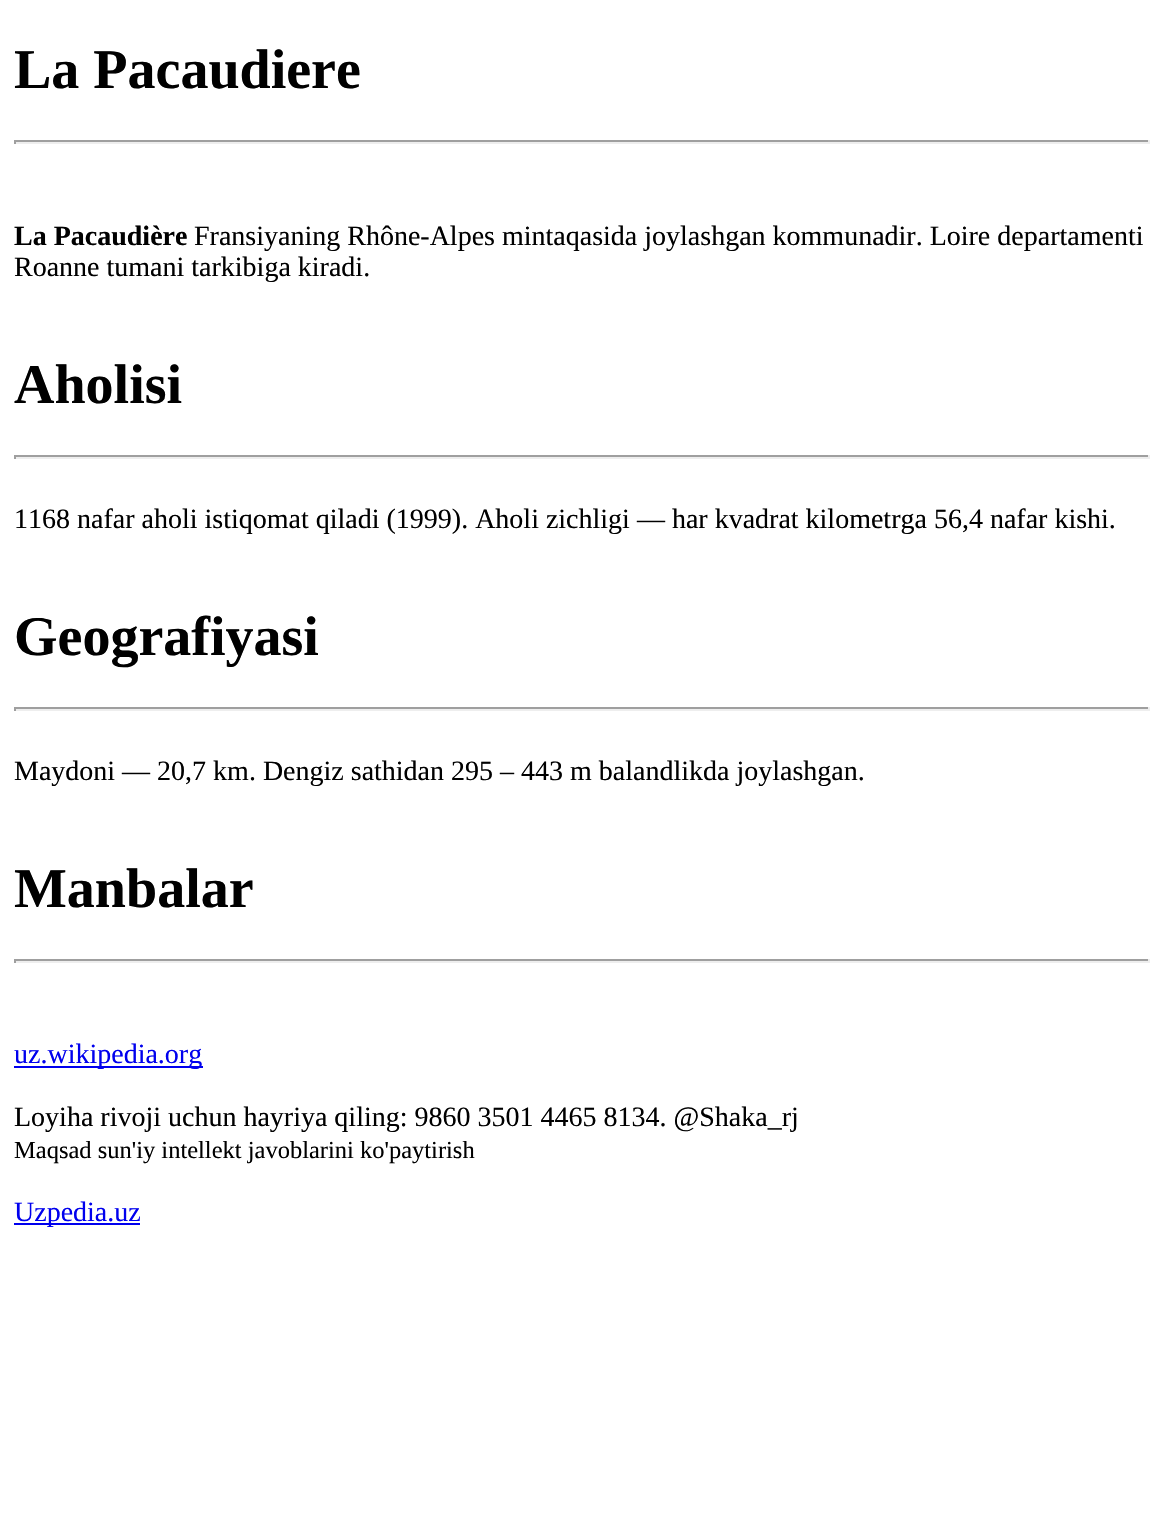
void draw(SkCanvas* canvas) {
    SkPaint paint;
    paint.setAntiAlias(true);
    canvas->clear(0xFFFFFFFF);
    SkFont font1(fontMgr->matchFamilyStyle("Liberation Serif", SkFontStyle::Bold()), 56);
    font1.setSubpixel(true);
    paint.setColor(0xFF000000);
    canvas->drawString("La Pacaudiere", 14, 88, font1, paint);
    paint.setColor(0xFF9F9F9F);
    canvas->drawRect(SkRect::MakeXYWH(14, 140, 1136, 2), paint);
    paint.setColor(0xFFEEEEEE);
    canvas->drawRect(SkRect::MakeXYWH(1148, 140, 2, 4), paint);
    canvas->drawRect(SkRect::MakeXYWH(14, 142, 1136, 2), paint);
    paint.setColor(0xFF9F9F9F);
    canvas->drawRect(SkRect::MakeXYWH(14, 140, 2, 4), paint);
    SkFont font2(fontMgr->matchFamilyStyle("Liberation Serif", SkFontStyle::Bold()), 28);
    font2.setSubpixel(true);
    paint.setColor(0xFF000000);
    canvas->drawString("La Pacaudière", 14, 245, font2, paint);
    SkFont font3(fontMgr->matchFamilyStyle("Liberation Serif", SkFontStyle::Normal()), 28);
    font3.setSubpixel(true);
    canvas->drawString("Fransiyaning Rhône-Alpes mintaqasida joylashgan kommunadir. Loire departamenti", 194, 245, font3, paint);
    canvas->drawString("Roanne tumani tarkibiga kiradi.", 14, 276, font3, paint);
    canvas->drawString("Aholisi", 14, 403, font1, paint);
    paint.setColor(0xFF9F9F9F);
    canvas->drawRect(SkRect::MakeXYWH(14, 455, 1136, 2), paint);
    paint.setColor(0xFFEEEEEE);
    canvas->drawRect(SkRect::MakeXYWH(1148, 455, 2, 4), paint);
    canvas->drawRect(SkRect::MakeXYWH(14, 457, 1136, 2), paint);
    paint.setColor(0xFF9F9F9F);
    canvas->drawRect(SkRect::MakeXYWH(14, 455, 2, 4), paint);
    paint.setColor(0xFF000000);
    canvas->drawString("1168 nafar aholi istiqomat qiladi (1999). Aholi zichligi — har kvadrat kilometrga 56,4 nafar kishi.", 14, 528, font3, paint);
    canvas->drawString("Geografiyasi", 14, 655, font1, paint);
    paint.setColor(0xFF9F9F9F);
    canvas->drawRect(SkRect::MakeXYWH(14, 707, 1136, 2), paint);
    paint.setColor(0xFFEEEEEE);
    canvas->drawRect(SkRect::MakeXYWH(1148, 707, 2, 4), paint);
    canvas->drawRect(SkRect::MakeXYWH(14, 709, 1136, 2), paint);
    paint.setColor(0xFF9F9F9F);
    canvas->drawRect(SkRect::MakeXYWH(14, 707, 2, 4), paint);
    paint.setColor(0xFF000000);
    canvas->drawString("Maydoni — 20,7 km. Dengiz sathidan 295 – 443 m balandlikda joylashgan.", 14, 780, font3, paint);
    canvas->drawString("Manbalar", 14, 907, font1, paint);
    paint.setColor(0xFF9F9F9F);
    canvas->drawRect(SkRect::MakeXYWH(14, 959, 1136, 2), paint);
    paint.setColor(0xFFEEEEEE);
    canvas->drawRect(SkRect::MakeXYWH(1148, 959, 2, 4), paint);
    canvas->drawRect(SkRect::MakeXYWH(14, 961, 1136, 2), paint);
    paint.setColor(0xFF9F9F9F);
    canvas->drawRect(SkRect::MakeXYWH(14, 959, 2, 4), paint);
    paint.setColor(0xFF0000EE);
    canvas->drawRect(SkRect::MakeXYWH(14, 1066, 189, 2), paint);
    canvas->drawString("uz.wikipedia.org", 14, 1063, font3, paint);
    paint.setColor(0xFF000000);
    canvas->drawString("Loyiha rivoji uchun hayriya qiling: 9860 3501 4465 8134. @Shaka_rj", 14, 1126, font3, paint);
    SkFont font4(fontMgr->matchFamilyStyle("Liberation Serif", SkFontStyle::Normal()), 24.5f);
    font4.setSubpixel(true);
    canvas->drawString("Maqsad sun'iy intellekt javoblarini ko'paytirish", 14, 1158, font4, paint);
    paint.setColor(0xFF0000EE);
    canvas->drawRect(SkRect::MakeXYWH(14, 1223, 126, 2), paint);
    canvas->drawString("Uzpedia.uz", 14, 1221, font3, paint);
}
